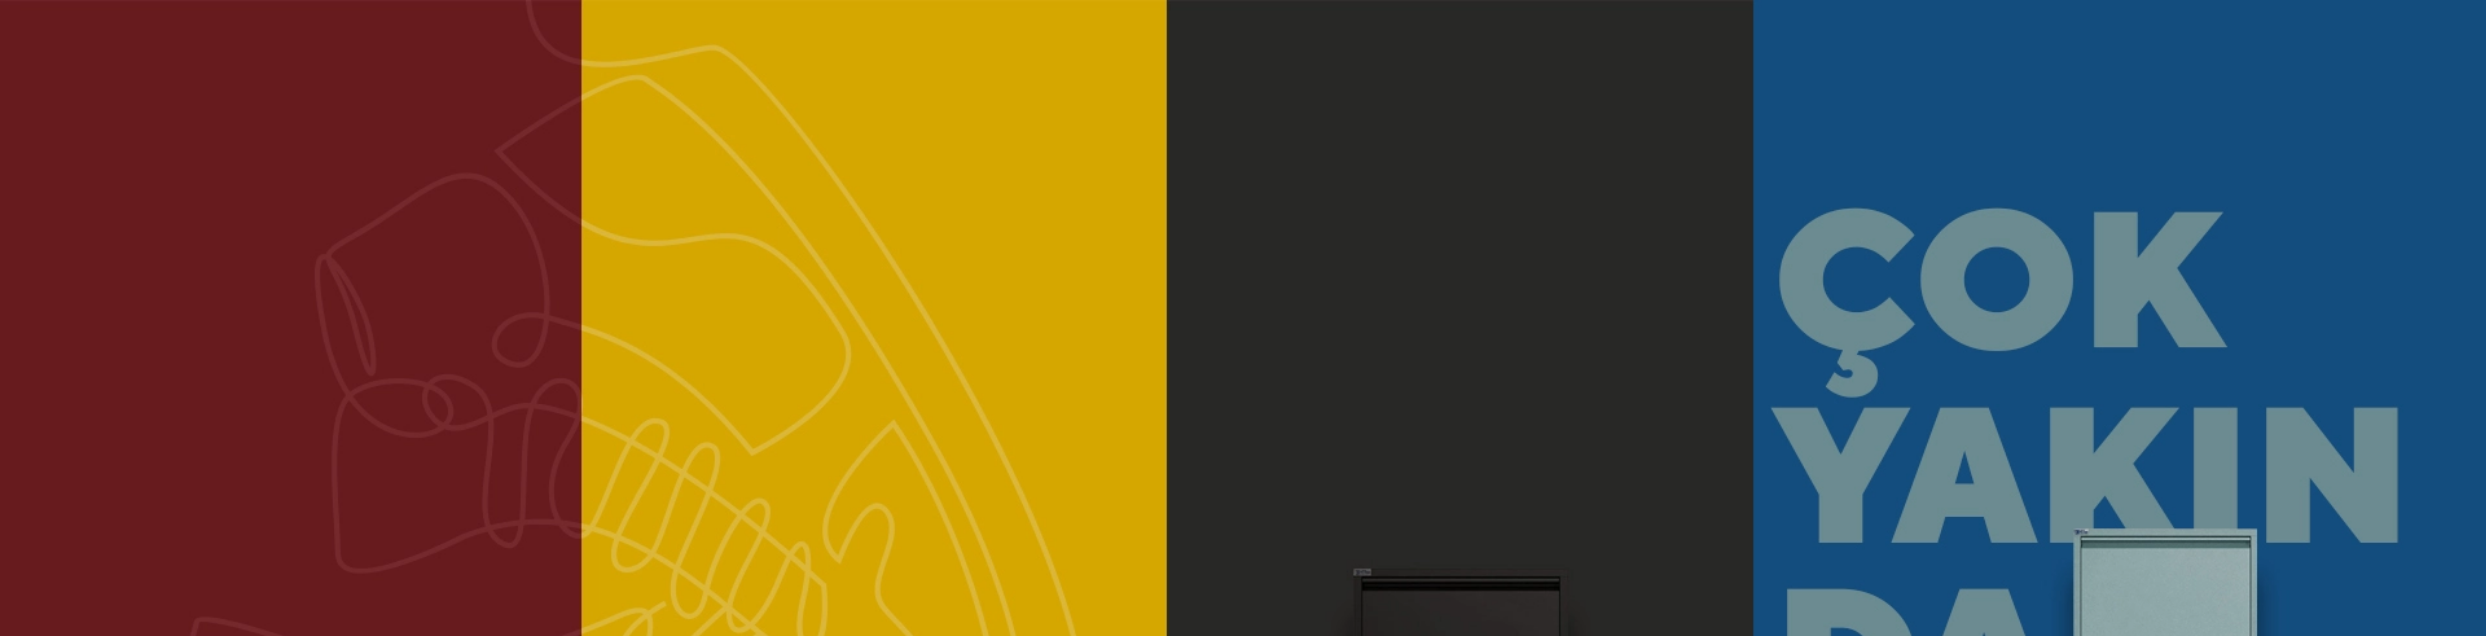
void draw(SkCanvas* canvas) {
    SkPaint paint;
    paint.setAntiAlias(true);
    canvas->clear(0xFFFFFFFF);
    canvas->drawImageRect(SkImages::DeferredFromEncodedData(SkData::MakeFromFileName("img1.png")), SkRect::MakeXYWH(0, 0, 2486, 636), SkSamplingOptions());
}
